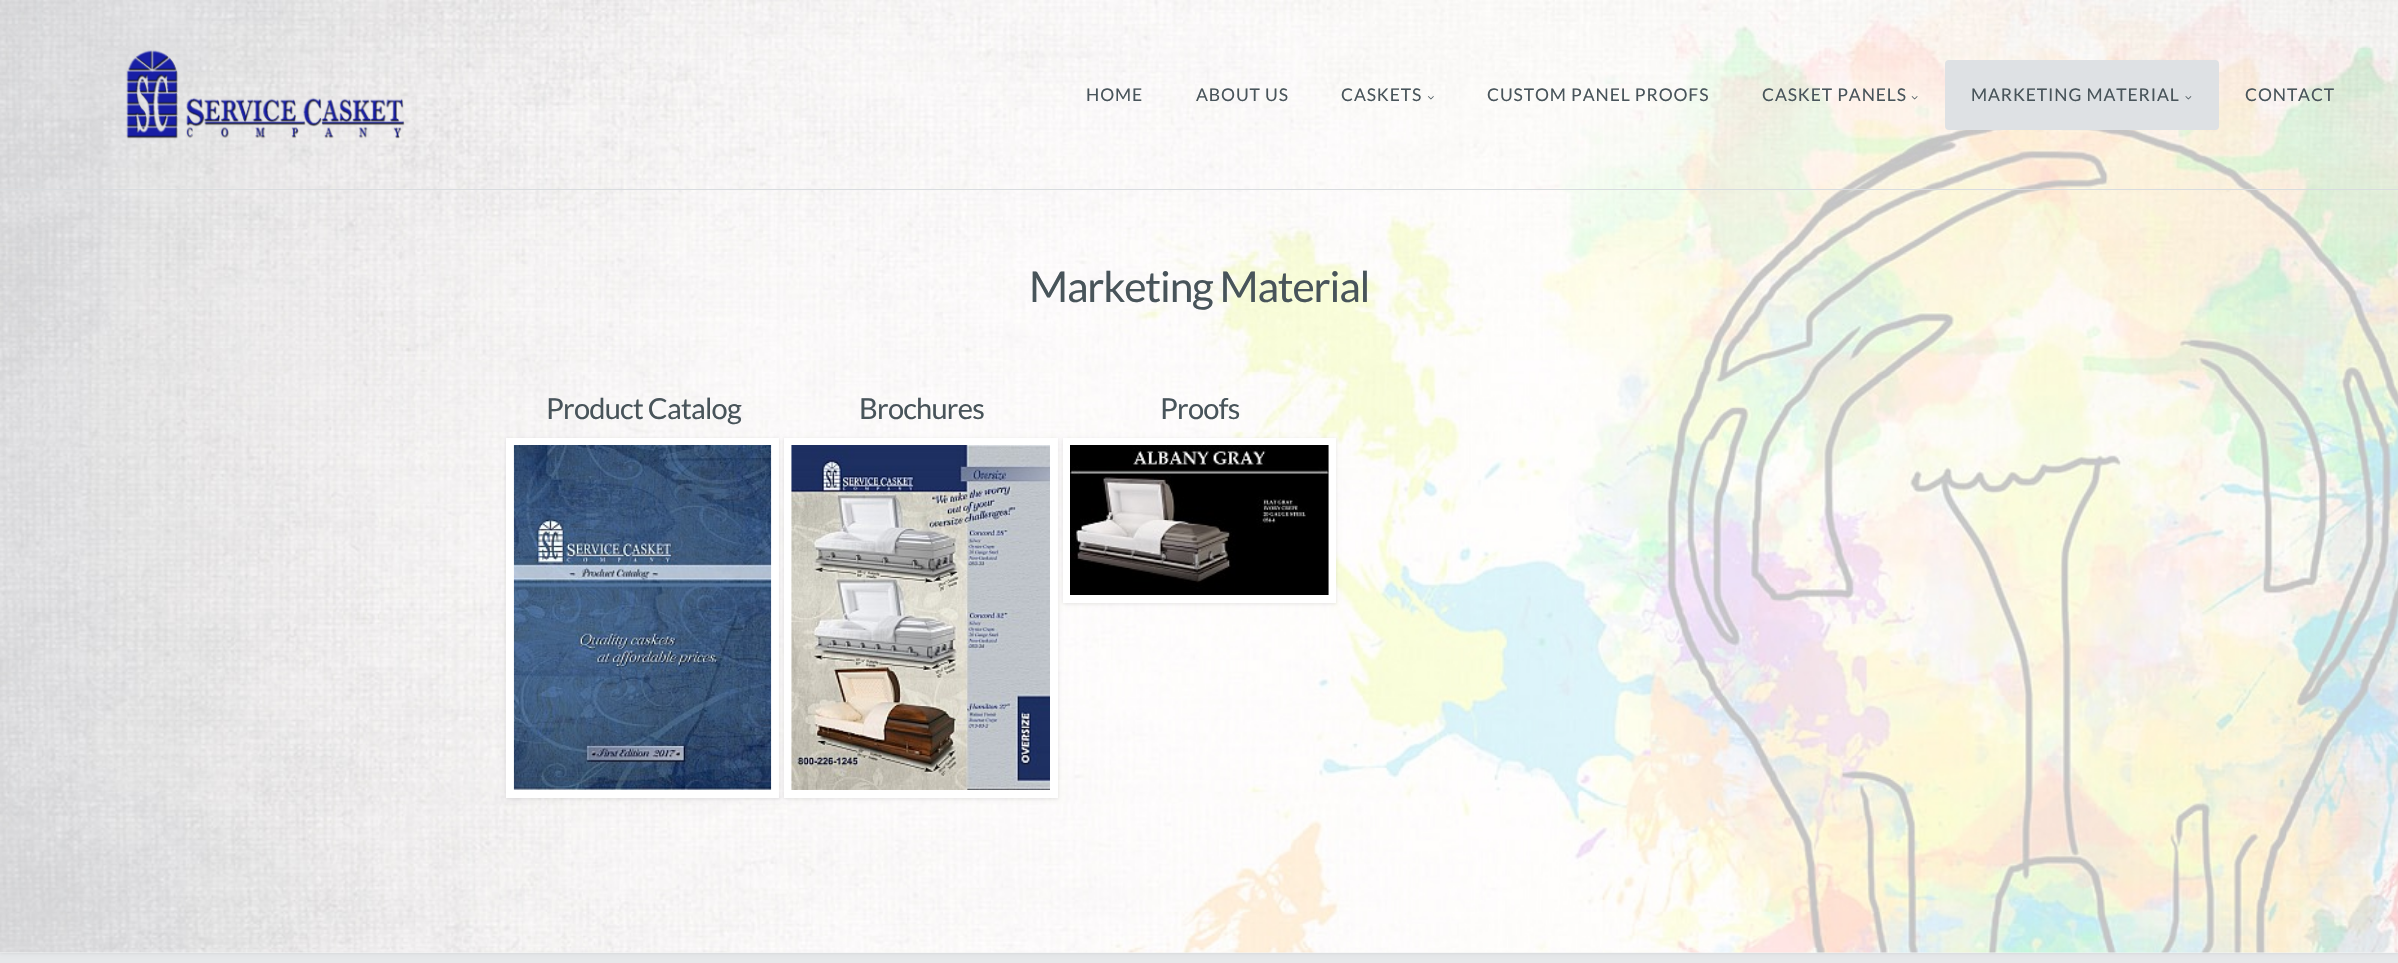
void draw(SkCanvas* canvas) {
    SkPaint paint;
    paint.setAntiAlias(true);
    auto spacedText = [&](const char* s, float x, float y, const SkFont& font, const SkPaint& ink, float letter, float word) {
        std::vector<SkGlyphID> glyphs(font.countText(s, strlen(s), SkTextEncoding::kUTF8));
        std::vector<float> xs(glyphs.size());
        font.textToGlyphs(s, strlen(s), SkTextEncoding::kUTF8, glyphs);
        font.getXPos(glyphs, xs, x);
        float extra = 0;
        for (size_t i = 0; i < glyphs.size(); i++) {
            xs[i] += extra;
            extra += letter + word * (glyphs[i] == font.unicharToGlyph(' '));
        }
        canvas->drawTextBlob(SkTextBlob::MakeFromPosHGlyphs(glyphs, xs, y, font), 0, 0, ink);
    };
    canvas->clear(0xFFE6E8EA);
    paint.setColor(0x1A000000);
    paint.setMaskFilter(SkMaskFilter::MakeBlur(kNormal_SkBlurStyle, 2));
    canvas->drawRect(SkRect::MakeXYWH(0, 0, 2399, 953), paint);
    paint.setMaskFilter(nullptr);
    paint.setColor(0xFFF3F4F5);
    canvas->drawRect(SkRect::MakeXYWH(0, 952, 2398, 1), paint);
    canvas->drawImageRect(SkImages::DeferredFromEncodedData(SkData::MakeFromFileName("img1.png")), SkRect::MakeXYWH(0, 0, 2398, 953), SkSamplingOptions());
    paint.setColor(0xFFD8DCDF);
    canvas->drawRect(SkRect::MakeXYWH(0, 189, 2398, 1), paint);
    canvas->drawImageRect(SkImages::DeferredFromEncodedData(SkData::MakeFromFileName("img2.png")), SkRect::MakeXYWH(126, 50, 279, 89), SkSamplingOptions());
    SkFont font1(fontMgr->matchFamilyStyle("Lato", SkFontStyle::Normal()), 17.5f);
    font1.setSubpixel(true);
    paint.setColor(0xFF48545A);
    spacedText("HOME", 1086, 101, font1, paint, 0.9f, 0);
    spacedText("ABOUT US", 1196, 101, font1, paint, 0.9f, 0);
    spacedText("CASKETS", 1341, 101, font1, paint, 0.9f, 0);
    canvas->drawImageRect(SkImages::DeferredFromEncodedData(SkData::MakeFromFileName("img3.png")), SkRect::MakeXYWH(1428, 96, 6, 4), SkSamplingOptions());
    spacedText("CUSTOM PANEL PROOFS", 1487, 101, font1, paint, 0.9f, 0);
    spacedText("CASKET PANELS", 1762, 101, font1, paint, 0.9f, 0);
    canvas->drawImageRect(SkImages::DeferredFromEncodedData(SkData::MakeFromFileName("img4.png")), SkRect::MakeXYWH(1911, 96, 7, 4), SkSamplingOptions());
    paint.setColor(0xFFDEE1E4);
    canvas->drawRoundRect(SkRect::MakeXYWH(1945, 60, 274, 70), 4, 4, paint);
    paint.setColor(0xFF48545A);
    spacedText("MARKETING MATERIAL", 1971, 101, font1, paint, 0.9f, 0);
    canvas->drawImageRect(SkImages::DeferredFromEncodedData(SkData::MakeFromFileName("img5.png")), SkRect::MakeXYWH(2185, 96, 7, 4), SkSamplingOptions());
    spacedText("CONTACT", 2245, 101, font1, paint, 0.9f, 0);
    SkFont font2(fontMgr->matchFamilyStyle("Lato", SkFontStyle::Normal()), 42.5f);
    font2.setSubpixel(true);
    spacedText("Marketing Material", 1029, 302, font2, paint, -1.2f, 0);
    SkFont font3(fontMgr->matchFamilyStyle("Lato", SkFontStyle::Normal()), 29);
    font3.setSubpixel(true);
    spacedText("Product Catalog", 546, 419, font3, paint, -0.75f, 0);
    paint.setColor(0x1A000000);
    paint.setMaskFilter(SkMaskFilter::MakeBlur(kNormal_SkBlurStyle, 2));
    canvas->drawRect(SkRect::MakeXYWH(506, 439, 273, 360), paint);
    paint.setMaskFilter(nullptr);
    paint.setColor(0xFFFFFFFF);
    canvas->drawRect(SkRect::MakeXYWH(506, 438, 273, 360), paint);
    canvas->drawImageRect(SkImages::DeferredFromEncodedData(SkData::MakeFromFileName("img6.png")), SkRect::MakeXYWH(513, 445, 259, 345), SkSamplingOptions());
    paint.setColor(0xFF48545A);
    spacedText("Brochures", 859, 419, font3, paint, -0.75f, 0);
    paint.setColor(0x1A000000);
    paint.setMaskFilter(SkMaskFilter::MakeBlur(kNormal_SkBlurStyle, 2));
    canvas->drawRect(SkRect::MakeXYWH(784, 439, 274, 360), paint);
    paint.setMaskFilter(nullptr);
    paint.setColor(0xFFFFFFFF);
    canvas->drawRect(SkRect::MakeXYWH(784, 438, 274, 360), paint);
    canvas->drawImageRect(SkImages::DeferredFromEncodedData(SkData::MakeFromFileName("img7.png")), SkRect::MakeXYWH(791, 445, 259, 345), SkSamplingOptions());
    paint.setColor(0xFF48545A);
    spacedText("Proofs", 1160, 419, font3, paint, -0.75f, 0);
    paint.setColor(0x1A000000);
    paint.setMaskFilter(SkMaskFilter::MakeBlur(kNormal_SkBlurStyle, 2));
    canvas->drawRect(SkRect::MakeXYWH(1063, 439, 273, 165), paint);
    paint.setMaskFilter(nullptr);
    paint.setColor(0xFFFFFFFF);
    canvas->drawRect(SkRect::MakeXYWH(1063, 438, 273, 165), paint);
    canvas->drawImageRect(SkImages::DeferredFromEncodedData(SkData::MakeFromFileName("img8.png")), SkRect::MakeXYWH(1070, 445, 259, 150), SkSamplingOptions());
}
